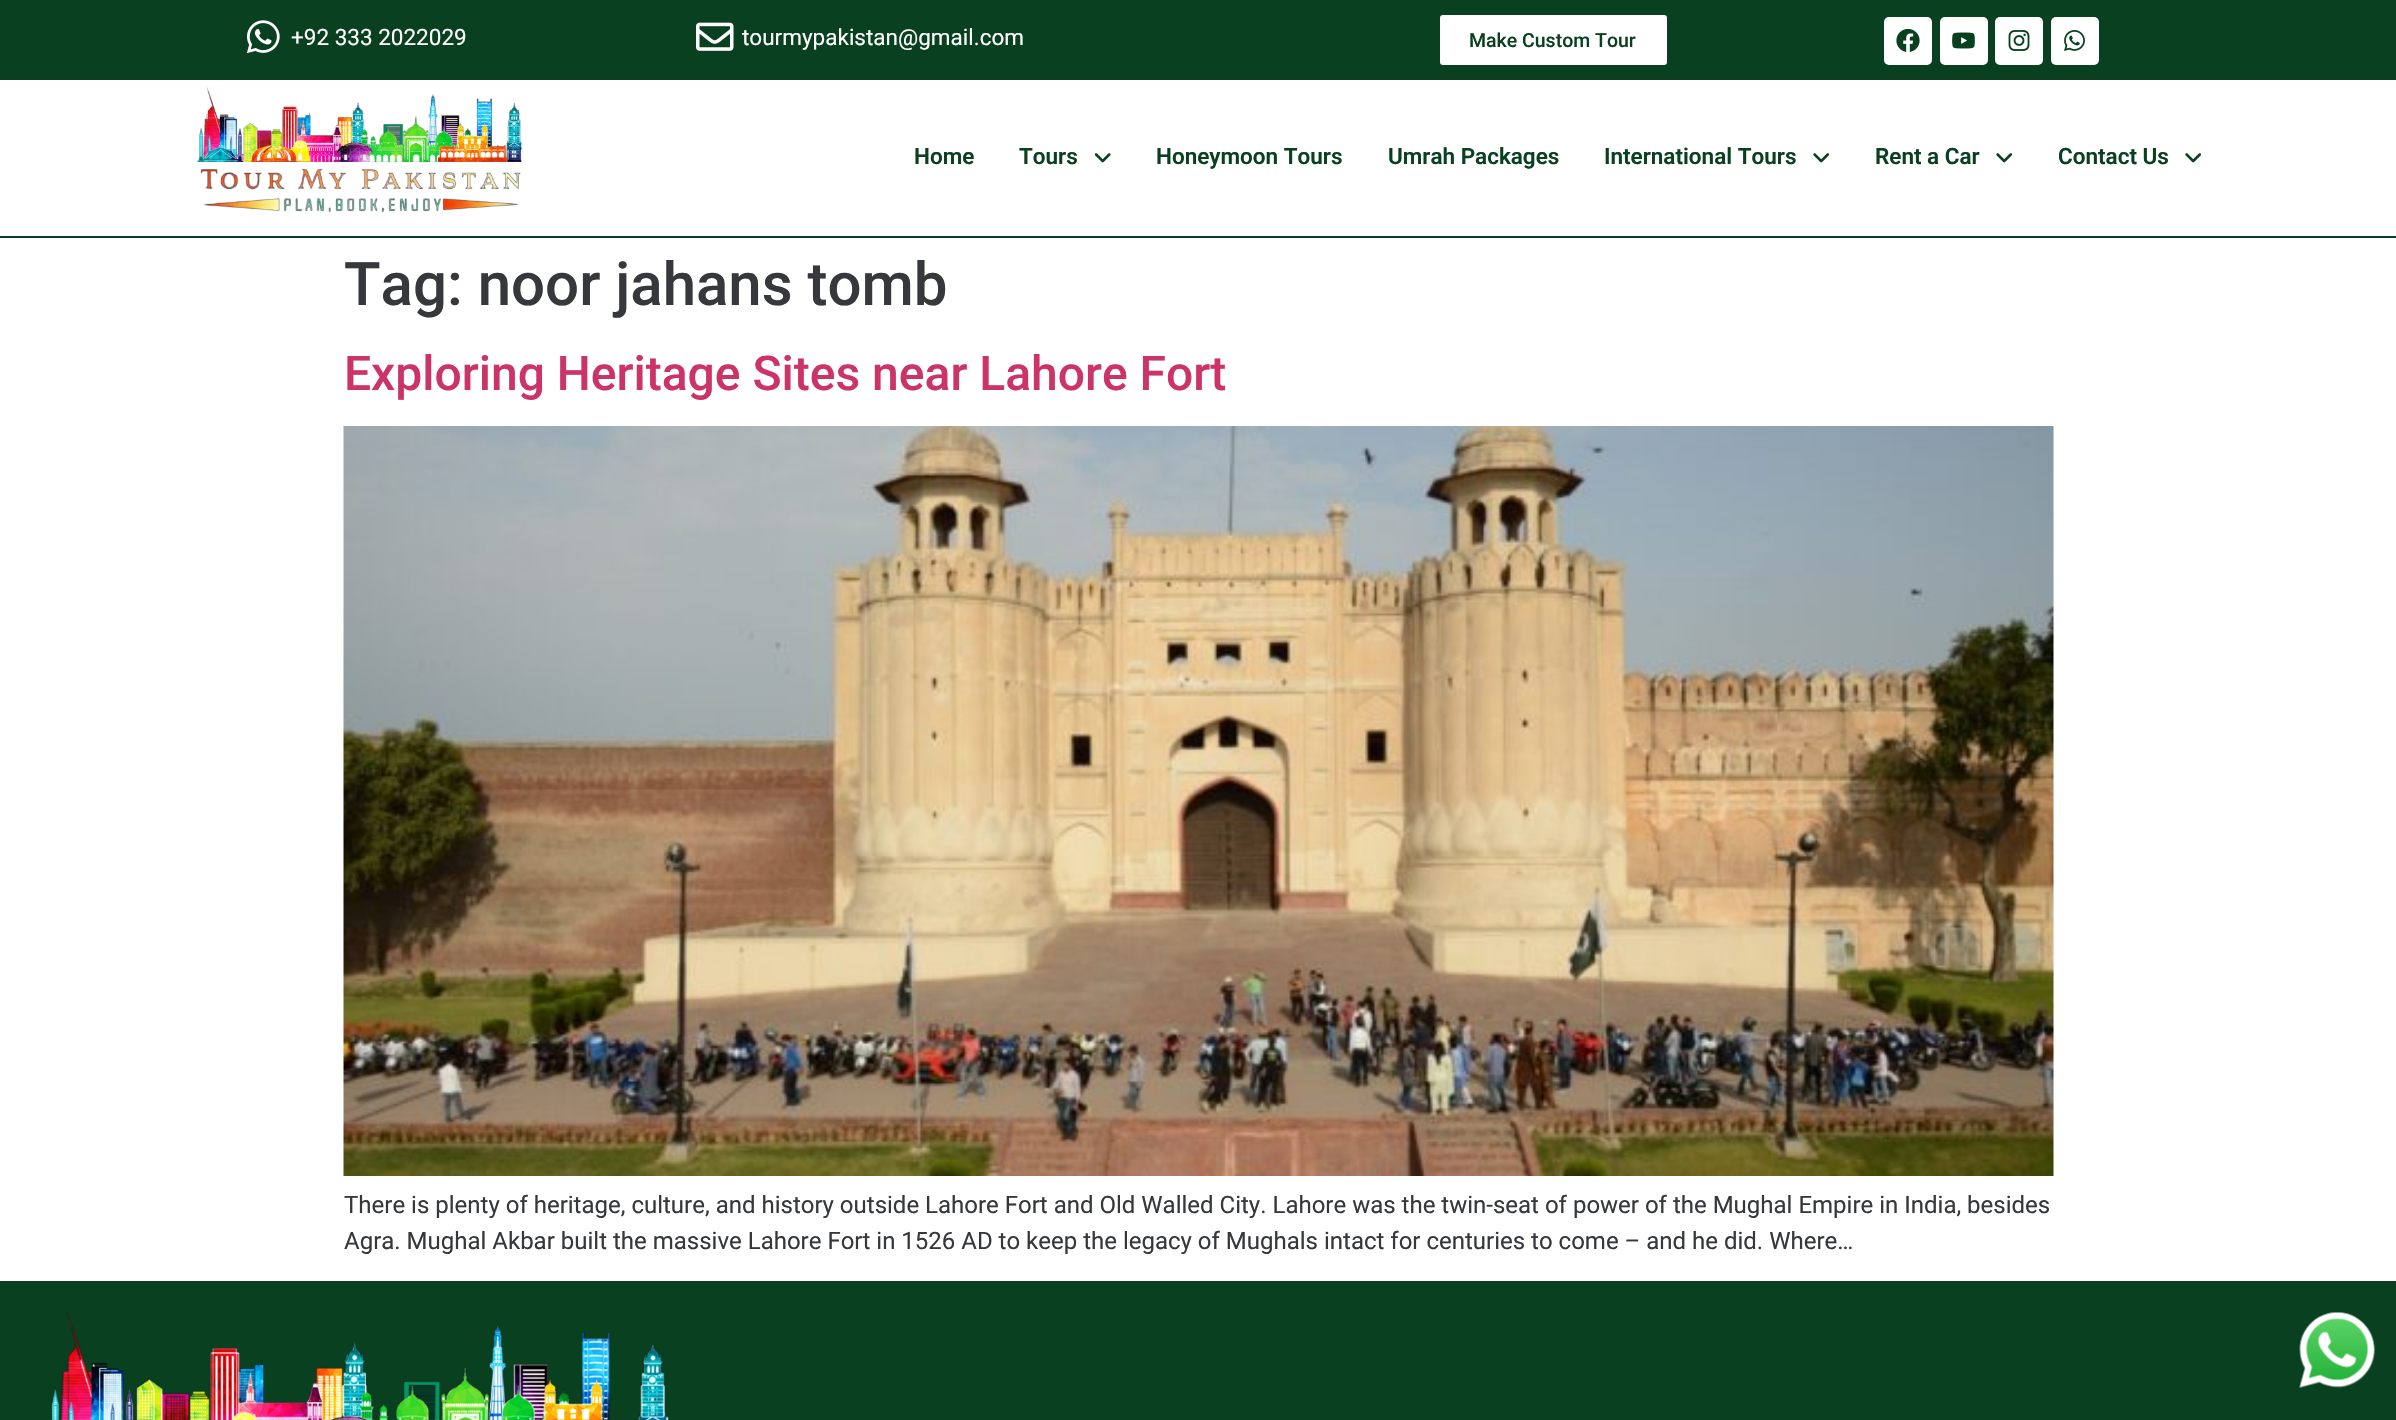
void draw(SkCanvas* canvas) {
    SkPaint paint;
    paint.setAntiAlias(true);
    canvas->clear(0xFFFFFFFF);
    paint.setColor(0xFF094020);
    canvas->drawRect(SkRect::MakeXYWH(0, 0, 2396, 80), paint);
    canvas->drawImageRect(SkImages::DeferredFromEncodedData(SkData::MakeFromFileName("img1.png")), SkRect::MakeXYWH(246, 20, 34, 34), SkSamplingOptions());
    SkFont font1(fontMgr->matchFamilyStyle("Roboto", SkFontStyle::Normal()), 22.5f);
    font1.setSubpixel(true);
    paint.setColor(0xFFFFFFFF);
    canvas->drawString("+92 333 2022029", 291, 45, font1, paint);
    canvas->drawImageRect(SkImages::DeferredFromEncodedData(SkData::MakeFromFileName("img2.png")), SkRect::MakeXYWH(696, 22, 38, 29), SkSamplingOptions());
    canvas->drawString("tourmypakistan@gmail.com", 742, 45, font1, paint);
    canvas->drawRoundRect(SkRect::MakeXYWH(1440, 15, 227, 50), 3, 3, paint);
    SkFont font2(fontMgr->matchFamilyStyle("Roboto", SkFontStyle(500, SkFontStyle::kNormal_Width, SkFontStyle::kUpright_Slant)), 19.5f);
    font2.setSubpixel(true);
    paint.setColor(0xFF094020);
    canvas->drawString("Make Custom Tour", 1469, 47, font2, paint);
    paint.setColor(0xFFFFFFFF);
    canvas->drawRoundRect(SkRect::MakeXYWH(1884, 17, 48, 48), 5, 5, paint);
    canvas->drawImageRect(SkImages::DeferredFromEncodedData(SkData::MakeFromFileName("img3.png")), SkRect::MakeXYWH(1896, 29, 24, 23), SkSamplingOptions());
    canvas->drawRoundRect(SkRect::MakeXYWH(1940, 17, 48, 48), 5, 5, paint);
    canvas->drawImageRect(SkImages::DeferredFromEncodedData(SkData::MakeFromFileName("img4.png")), SkRect::MakeXYWH(1952, 32, 23, 17), SkSamplingOptions());
    canvas->drawRoundRect(SkRect::MakeXYWH(1995, 17, 48, 48), 5, 5, paint);
    canvas->drawImageRect(SkImages::DeferredFromEncodedData(SkData::MakeFromFileName("img5.png")), SkRect::MakeXYWH(2008, 30, 22, 21), SkSamplingOptions());
    canvas->drawRoundRect(SkRect::MakeXYWH(2051, 17, 48, 48), 5, 5, paint);
    canvas->drawImageRect(SkImages::DeferredFromEncodedData(SkData::MakeFromFileName("img6.png")), SkRect::MakeXYWH(2064, 30, 21, 21), SkSamplingOptions());
    paint.setColor(0xFF094020);
    canvas->drawRect(SkRect::MakeXYWH(0, 236, 2396, 2), paint);
    canvas->drawImageRect(SkImages::DeferredFromEncodedData(SkData::MakeFromFileName("img7.png")), SkRect::MakeXYWH(197, 87, 326, 126), SkSamplingOptions());
    SkFont font3(fontMgr->matchFamilyStyle("Roboto", SkFontStyle(600, SkFontStyle::kNormal_Width, SkFontStyle::kUpright_Slant)), 22.5f);
    font3.setSubpixel(true);
    canvas->drawString("Home", 914, 164, font3, paint);
    canvas->drawString("Tours", 1019, 164, font3, paint);
    canvas->drawImageRect(SkImages::DeferredFromEncodedData(SkData::MakeFromFileName("img8.png")), SkRect::MakeXYWH(1094, 153, 17, 10), SkSamplingOptions());
    canvas->drawString("Honeymoon Tours", 1156, 164, font3, paint);
    canvas->drawString("Umrah Packages", 1388, 164, font3, paint);
    canvas->drawString("International Tours", 1604, 164, font3, paint);
    canvas->drawImageRect(SkImages::DeferredFromEncodedData(SkData::MakeFromFileName("img9.png")), SkRect::MakeXYWH(1813, 153, 16, 10), SkSamplingOptions());
    canvas->drawString("Rent a Car", 1875, 164, font3, paint);
    canvas->drawImageRect(SkImages::DeferredFromEncodedData(SkData::MakeFromFileName("img9.png")), SkRect::MakeXYWH(1996, 153, 16, 10), SkSamplingOptions());
    canvas->drawString("Contact Us", 2058, 164, font3, paint);
    canvas->drawImageRect(SkImages::DeferredFromEncodedData(SkData::MakeFromFileName("img9.png")), SkRect::MakeXYWH(2185, 153, 16, 10), SkSamplingOptions());
    SkFont font4(fontMgr->matchFamilyStyle("Roboto", SkFontStyle(500, SkFontStyle::kNormal_Width, SkFontStyle::kUpright_Slant)), 60);
    font4.setSubpixel(true);
    paint.setColor(0xFF36383C);
    canvas->drawString("Tag: noor jahans tomb", 344, 305, font4, paint);
    SkFont font5(fontMgr->matchFamilyStyle("Roboto", SkFontStyle(500, SkFontStyle::kNormal_Width, SkFontStyle::kUpright_Slant)), 48);
    font5.setSubpixel(true);
    paint.setColor(0xFFCC3366);
    canvas->drawString("Exploring Heritage Sites near Lahore Fort", 344, 390, font5, paint);
    canvas->drawImageRect(SkImages::DeferredFromEncodedData(SkData::MakeFromFileName("img10.png")), SkRect::MakeXYWH(343, 426, 1711, 750), SkSamplingOptions());
    SkFont font6(fontMgr->matchFamilyStyle("Roboto", SkFontStyle::Normal()), 24);
    font6.setSubpixel(true);
    paint.setColor(0xFF36383C);
    canvas->drawString("There is plenty of heritage, culture, and history outside Lahore Fort and Old Walled City. Lahore was the twin-seat of power of the Mughal Empire in India, besides", 344, 1213, font6, paint);
    canvas->drawString("Agra. Mughal Akbar built the massive Lahore Fort in 1526 AD to keep the legacy of Mughals intact for centuries to come – and he did. Where…", 344, 1249, font6, paint);
    paint.setColor(0xFF094020);
    canvas->drawRect(SkRect::MakeXYWH(0, 1281, 2396, 139), paint);
    canvas->drawImageRect(SkImages::DeferredFromEncodedData(SkData::MakeFromFileName("img11.png")), SkRect::MakeXYWH(51, 1311, 618, 109), SkSamplingOptions());
    canvas->drawImageRect(SkImages::DeferredFromEncodedData(SkData::MakeFromFileName("img12.png")), SkRect::MakeXYWH(2299, 1312, 76, 76), SkSamplingOptions());
}
